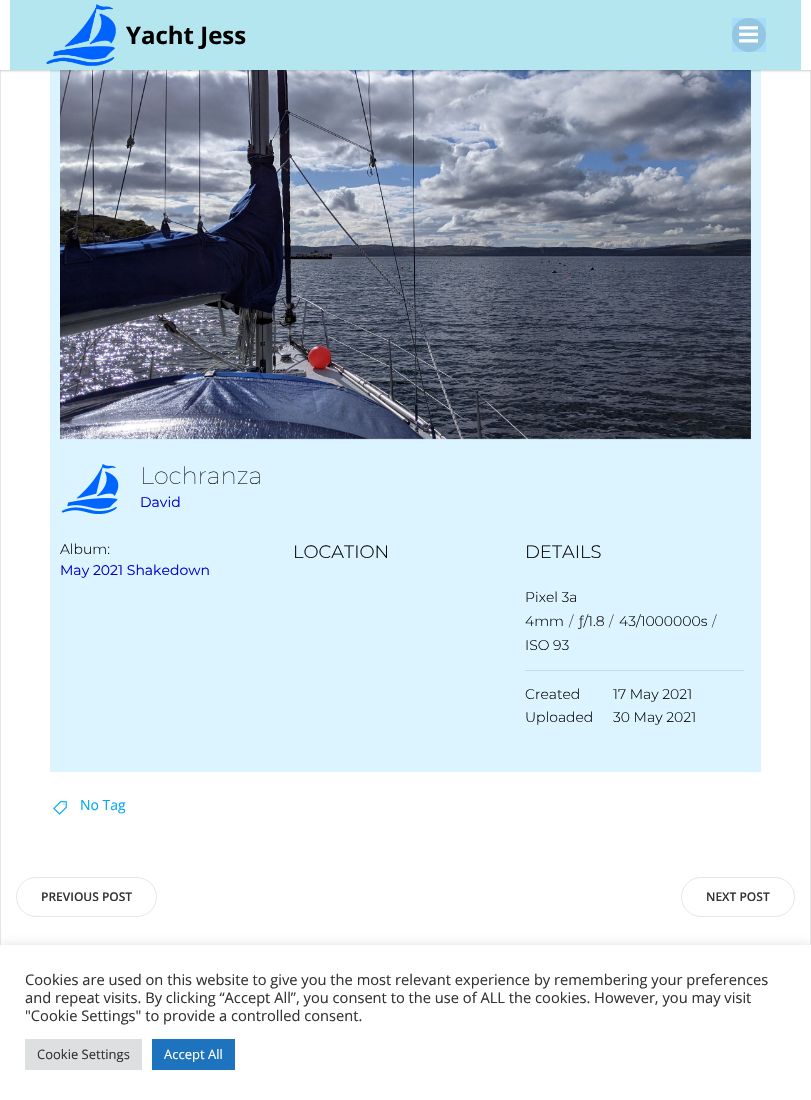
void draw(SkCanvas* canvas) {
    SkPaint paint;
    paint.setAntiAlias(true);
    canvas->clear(0xFFFFFFFF);
    paint.setColor(0xFFE6E6E6);
    canvas->drawRect(SkRect::MakeXYWH(810, 70, 1, 878), paint);
    canvas->drawRect(SkRect::MakeXYWH(0, 70, 1, 878), paint);
    paint.setColor(0xFFDBF4FF);
    canvas->drawRect(SkRect::MakeXYWH(50, 70, 711, 702), paint);
    canvas->drawImageRect(SkImages::DeferredFromEncodedData(SkData::MakeFromFileName("img3.png")), SkRect::MakeXYWH(60, 70, 691, 370), SkSamplingOptions());
    paint.setColor(0x33000000);
    paint.setMaskFilter(SkMaskFilter::MakeBlur(kNormal_SkBlurStyle, 1));
    canvas->drawRect(SkRect::MakeXYWH(0, 1, 811, 70), paint);
    paint.setMaskFilter(nullptr);
    paint.setColor(0xFFFFFFFF);
    canvas->drawRect(SkRect::MakeXYWH(0, 0, 811, 70), paint);
    paint.setColor(0xFFB4E6F0);
    canvas->drawRect(SkRect::MakeXYWH(10, 0, 791, 70), paint);
    canvas->drawImageRect(SkImages::DeferredFromEncodedData(SkData::MakeFromFileName("img1.png")), SkRect::MakeXYWH(46, 4, 70, 62), SkSamplingOptions());
    SkFont font1(fontMgr->matchFamilyStyle("Open Sans", SkFontStyle::Bold()), 24);
    font1.setSubpixel(true);
    paint.setColor(0xFF000000);
    canvas->drawString("Yacht Jess", 126, 44, font1, paint);
    paint.setColor(0xFFA6DCFA);
    canvas->drawRect(SkRect::MakeXYWH(732, 18, 34, 34), paint);
    paint.setColor(0xFF95C6E1);
    canvas->drawCircle(749, 35, 17, paint);
    canvas->drawImageRect(SkImages::DeferredFromEncodedData(SkData::MakeFromFileName("img2.png")), SkRect::MakeXYWH(739, 26, 19, 17), SkSamplingOptions());
    canvas->drawImageRect(SkImages::DeferredFromEncodedData(SkData::MakeFromFileName("img4.png")), SkRect::MakeXYWH(61, 464, 58, 50), SkSamplingOptions());
    SkFont font2(fontMgr->matchFamilyStyle("Montserrat", SkFontStyle(100, SkFontStyle::kNormal_Width, SkFontStyle::kUpright_Slant)), 24);
    font2.setSubpixel(true);
    paint.setColor(0xFF000000);
    canvas->drawString("Lochranza", 140, 484, font2, paint);
    SkFont font3(fontMgr->matchFamilyStyle("Montserrat", SkFontStyle::Normal()), 14);
    font3.setSubpixel(true);
    paint.setColor(0xFF0000D1);
    canvas->drawString("David", 140, 507, font3, paint);
    SkFont font4(fontMgr->matchFamilyStyle("Montserrat", SkFontStyle(300, SkFontStyle::kNormal_Width, SkFontStyle::kUpright_Slant)), 14);
    font4.setSubpixel(true);
    paint.setColor(0xFF000000);
    canvas->drawString("Album:", 60, 554, font4, paint);
    paint.setColor(0xFF0000D1);
    canvas->drawString("May 2021 Shakedown", 60, 575, font3, paint);
    SkFont font5(fontMgr->matchFamilyStyle("Montserrat", SkFontStyle(300, SkFontStyle::kNormal_Width, SkFontStyle::kUpright_Slant)), 18);
    font5.setSubpixel(true);
    paint.setColor(0xFF000000);
    canvas->drawString("LOCATION", 293, 558, font5, paint);
    canvas->drawString("DETAILS", 525, 558, font5, paint);
    paint.setColor(0xFFC5DCE6);
    canvas->drawRect(SkRect::MakeXYWH(525, 670, 219, 1), paint);
    paint.setColor(0xFF000000);
    canvas->drawString("Pixel 3a", 525, 602, font4, paint);
    canvas->drawString("4mm", 525, 626, font4, paint);
    SkFont font6(fontMgr->matchFamilyStyle("Montserrat", SkFontStyle(200, SkFontStyle::kNormal_Width, SkFontStyle::kUpright_Slant)), 14);
    font6.setSubpixel(true);
    canvas->drawString("/", 569, 626, font6, paint);
    canvas->drawString("ƒ/1.8", 579, 626, font4, paint);
    canvas->drawString("/", 609, 626, font6, paint);
    canvas->drawString("43/1000000s", 619, 626, font4, paint);
    canvas->drawString("/", 712, 626, font6, paint);
    canvas->drawString("ISO 93", 525, 650, font4, paint);
    canvas->drawString("Created", 525, 699, font4, paint);
    canvas->drawString("17 May 2021", 613, 699, font4, paint);
    canvas->drawString("Uploaded", 525, 722, font4, paint);
    canvas->drawString("30 May 2021", 613, 722, font4, paint);
    canvas->drawImageRect(SkImages::DeferredFromEncodedData(SkData::MakeFromFileName("img5.png")), SkRect::MakeXYWH(53, 801, 14, 14), SkSamplingOptions());
    SkFont font7(fontMgr->matchFamilyStyle("Open Sans", SkFontStyle::Normal()), 14);
    font7.setSubpixel(true);
    paint.setColor(0xFF03A9F4);
    canvas->drawString("No Tag", 80, 810, font7, paint);
    paint.setStyle(SkPaint::kStroke_Style);
    paint.setStrokeWidth(1);
    paint.setColor(0xFFE6E6E6);
    canvas->drawRoundRect(SkRect::MakeXYWH(16.5f, 877.5f, 140, 39), 19.5f, 19.5f, paint);
    SkFont font8(fontMgr->matchFamilyStyle("Open Sans", SkFontStyle(600, SkFontStyle::kNormal_Width, SkFontStyle::kUpright_Slant)), 12);
    font8.setSubpixel(true);
    paint.setStyle(SkPaint::kFill_Style);
    paint.setColor(0xFF333333);
    canvas->drawString("PREVIOUS POST", 41, 901, font8, paint);
    paint.setStyle(SkPaint::kStroke_Style);
    paint.setColor(0xFFE6E6E6);
    canvas->drawRoundRect(SkRect::MakeXYWH(681.5f, 877.5f, 113, 39), 19.5f, 19.5f, paint);
    paint.setStyle(SkPaint::kFill_Style);
    paint.setColor(0xFF333333);
    canvas->drawString("NEXT POST", 706, 901, font8, paint);
    paint.setColor(0x4DACABAB);
    paint.setMaskFilter(SkMaskFilter::MakeBlur(kNormal_SkBlurStyle, 5));
    canvas->drawRect(SkRect::MakeXYWH(0, 944, 811, 155), paint);
    paint.setMaskFilter(nullptr);
    paint.setColor(0xFFFFFFFF);
    canvas->drawRect(SkRect::MakeXYWH(0, 945, 811, 155), paint);
    SkFont font9(fontMgr->matchFamilyStyle("Open Sans", SkFontStyle::Normal()), 14.67f);
    font9.setSubpixel(true);
    paint.setColor(0xFF333333);
    canvas->drawString("Cookies are used on this website to give you the most relevant experience by remembering your preferences", 25, 985, font9, paint);
    canvas->drawString("and repeat visits. By clicking “Accept All”, you consent to the use of ALL the cookies. However, you may visit", 25, 1003, font9, paint);
    canvas->drawString("\"Cookie Settings\" to provide a controlled consent.", 25, 1021, font9, paint);
    paint.setColor(0xFFDEDFE0);
    canvas->drawRect(SkRect::MakeXYWH(25, 1039, 117, 31), paint);
    SkFont font10(fontMgr->matchFamilyStyle("Open Sans", SkFontStyle::Normal()), 13);
    font10.setSubpixel(true);
    paint.setColor(0xFF333333);
    canvas->drawString("Cookie Settings", 37, 1059, font10, paint);
    paint.setColor(0xFF1E73BE);
    canvas->drawRect(SkRect::MakeXYWH(152, 1039, 83, 31), paint);
    paint.setColor(0xFFFFFFFF);
    canvas->drawString("Accept All", 164, 1059, font10, paint);
}
